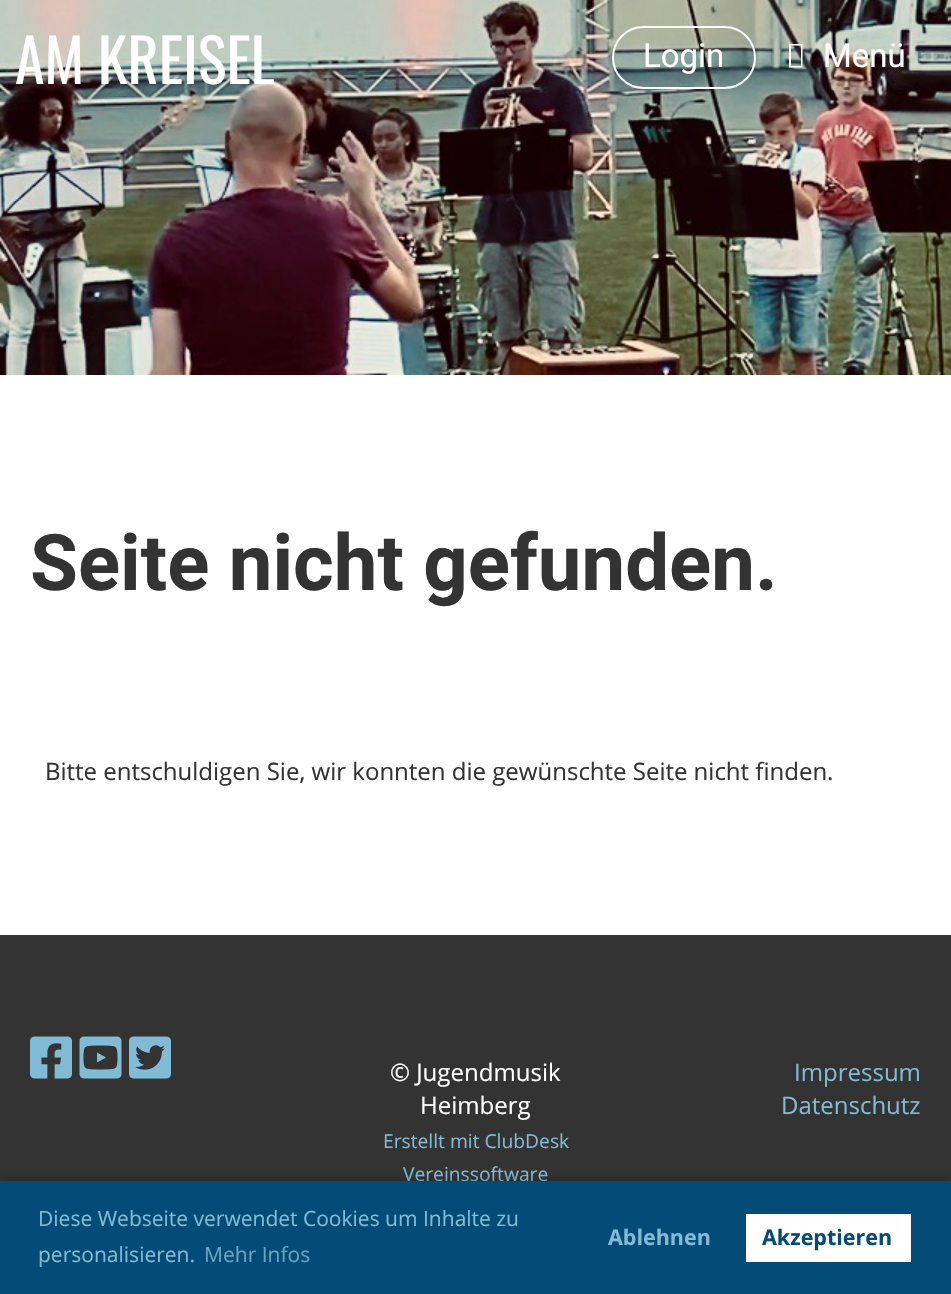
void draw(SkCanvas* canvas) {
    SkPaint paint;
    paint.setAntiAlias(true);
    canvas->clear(0xFFFFFFFF);
    canvas->drawImageRect(SkImages::DeferredFromEncodedData(SkData::MakeFromFileName("img1.png")), SkRect::MakeXYWH(0, 0, 951, 375), SkSamplingOptions());
    SkFont font1(fontMgr->matchFamilyStyle("Oswald", SkFontStyle::Normal()), 60);
    font1.setSubpixel(true);
    paint.setColor(0xFFFFFFFF);
    canvas->drawString("AM KREISEL", 15, 84, font1, paint);
    paint.setStyle(SkPaint::kStroke_Style);
    paint.setStrokeWidth(2);
    canvas->drawRoundRect(SkRect::MakeXYWH(613, 27, 142, 61), 30.5f, 30.5f, paint);
    SkFont font2(fontMgr->matchFamilyStyle("Roboto", SkFontStyle::Normal()), 33);
    font2.setSubpixel(true);
    paint.setStyle(SkPaint::kFill_Style);
    canvas->drawString("Login", 643, 67, font2, paint);
    canvas->drawPath(SkPathBuilder().moveTo(789, 67.5f).lineTo(789, 44).lineTo(802.5f, 44).lineTo(802.5f, 67.5f).close().moveTo(791, 66).lineTo(801, 66).lineTo(801, 45.5f).lineTo(791, 45.5f).close().detach(), paint);
    canvas->drawString("Menü", 823, 67, font2, paint);
    SkFont font3(fontMgr->matchFamilyStyle("Roboto", SkFontStyle::Bold()), 78);
    font3.setSubpixel(true);
    paint.setColor(0xFF333333);
    canvas->drawString("Seite nicht gefunden.", 30, 590, font3, paint);
    SkFont font4(fontMgr->matchFamilyStyle("Open Sans", SkFontStyle::Normal()), 24);
    font4.setSubpixel(true);
    canvas->drawString("Bitte entschuldigen Sie, wir konnten die gewünschte Seite nicht finden.", 45, 780, font4, paint);
    canvas->drawRect(SkRect::MakeXYWH(0, 935, 951, 246), paint);
    canvas->drawImageRect(SkImages::DeferredFromEncodedData(SkData::MakeFromFileName("img2.png")), SkRect::MakeXYWH(30, 1036, 42, 43), SkSamplingOptions());
    canvas->drawImageRect(SkImages::DeferredFromEncodedData(SkData::MakeFromFileName("img3.png")), SkRect::MakeXYWH(79, 1036, 43, 43), SkSamplingOptions());
    canvas->drawImageRect(SkImages::DeferredFromEncodedData(SkData::MakeFromFileName("img4.png")), SkRect::MakeXYWH(129, 1036, 42, 43), SkSamplingOptions());
    paint.setColor(0xFFFFFFFF);
    canvas->drawString("© Jugendmusik", 390, 1081, font4, paint);
    canvas->drawString("Heimberg", 420, 1114, font4, paint);
    SkFont font5(fontMgr->matchFamilyStyle("Open Sans", SkFontStyle::Normal()), 19.25f);
    font5.setSubpixel(true);
    paint.setColor(0xFF81BBD5);
    canvas->drawString("Erstellt mit ClubDesk", 383, 1148, font5, paint);
    canvas->drawString("Vereinssoftware", 403, 1181, font5, paint);
    canvas->drawString("Impressum", 794, 1081, font4, paint);
    canvas->drawString("Datenschutz", 781, 1114, font4, paint);
    paint.setColor(0x4D000000);
    paint.setMaskFilter(SkMaskFilter::MakeBlur(kNormal_SkBlurStyle, 4));
    canvas->drawRect(SkRect::MakeXYWH(0, 1181, 951, 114), paint);
    paint.setMaskFilter(nullptr);
    paint.setColor(0xFF044C77);
    canvas->drawRect(SkRect::MakeXYWH(0, 1181, 951, 113), paint);
    SkFont font6(fontMgr->matchFamilyStyle("Open Sans", SkFontStyle::Normal()), 21);
    font6.setSubpixel(true);
    paint.setColor(0xFF81BBD5);
    canvas->drawString("Diese Webseite verwendet Cookies um Inhalte zu", 38, 1226, font6, paint);
    canvas->drawString("personalisieren.", 38, 1262, font6, paint);
    paint.setColor(0xFF68A5C2);
    canvas->drawString("Mehr Infos", 204, 1262, font6, paint);
    SkFont font7(fontMgr->matchFamilyStyle("Open Sans", SkFontStyle::Bold()), 21.5f);
    font7.setSubpixel(true);
    paint.setColor(0xFF81BBD5);
    canvas->drawString("Ablehnen", 608, 1245, font7, paint);
    paint.setColor(0xFFFFFFFF);
    canvas->drawRect(SkRect::MakeXYWH(746, 1214, 165, 48), paint);
    paint.setColor(0xFF044C77);
    canvas->drawString("Akzeptieren", 762, 1245, font7, paint);
}
